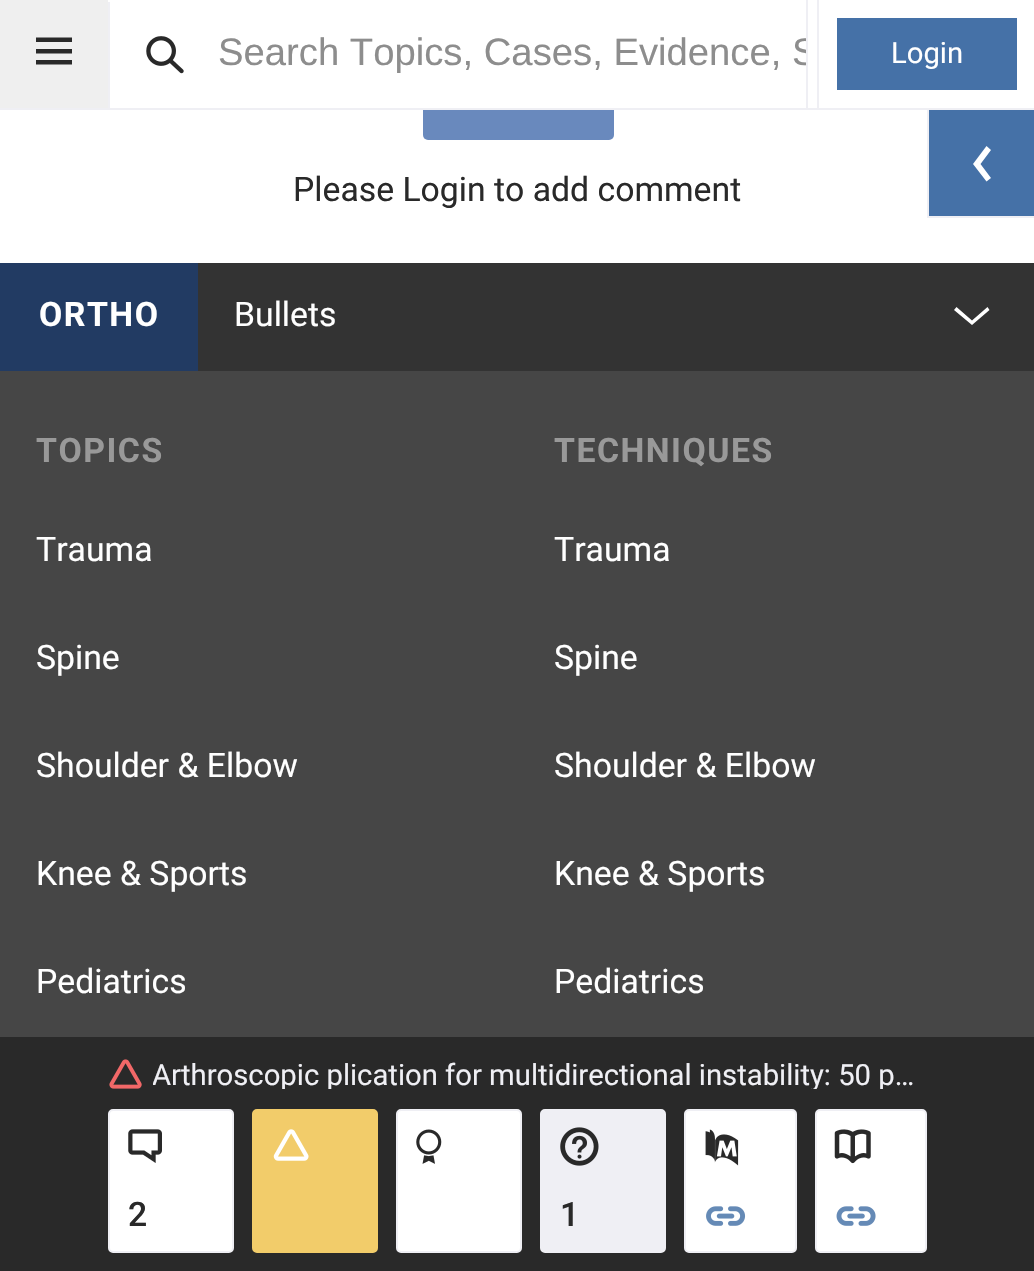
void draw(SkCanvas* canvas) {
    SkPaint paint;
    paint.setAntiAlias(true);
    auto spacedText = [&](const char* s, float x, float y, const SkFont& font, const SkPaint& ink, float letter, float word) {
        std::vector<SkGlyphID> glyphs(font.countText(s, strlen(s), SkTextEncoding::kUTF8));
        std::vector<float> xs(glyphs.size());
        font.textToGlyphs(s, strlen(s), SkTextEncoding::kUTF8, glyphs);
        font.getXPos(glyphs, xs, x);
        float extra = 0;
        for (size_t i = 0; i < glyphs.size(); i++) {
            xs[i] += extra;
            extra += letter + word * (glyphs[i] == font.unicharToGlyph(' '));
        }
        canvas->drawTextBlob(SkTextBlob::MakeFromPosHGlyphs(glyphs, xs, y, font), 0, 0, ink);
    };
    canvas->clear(0xFFFFFFFF);
    paint.setColor(0xFF6989BD);
    canvas->drawRoundRect(SkRect::MakeXYWH(423, 68, 191, 72), 5, 5, paint);
    paint.setColor(0xFFFFFFFF);
    canvas->drawRect(SkRect::MakeXYWH(423, 68, 191, 40), paint);
    paint.setColor(0xFFEFEFF4);
    canvas->drawRect(SkRect::MakeXYWH(0, 108, 1034, 2), paint);
    paint.setColor(0xFFEFEFEF);
    canvas->drawRect(SkRect::MakeXYWH(0, 0, 108, 108), paint);
    paint.setColor(0xFF292929);
    canvas->drawPath(SkPathBuilder().moveTo(36, 37.5f).lineTo(72, 37.5f).lineTo(72, 42).lineTo(36, 42).close().moveTo(36, 49).lineTo(72, 49).lineTo(72, 53.5f).lineTo(36, 53.5f).close().moveTo(36, 60).lineTo(72, 60).lineTo(72, 64.5f).lineTo(36, 64.5f).close().detach(), paint);
    paint.setColor(0xFFEFEFF4);
    canvas->drawRect(SkRect::MakeXYWH(108, 2, 2, 106), paint);
    canvas->drawImageRect(SkImages::DeferredFromEncodedData(SkData::MakeFromFileName("img1.png")), SkRect::MakeXYWH(146, 36, 38, 38), SkSamplingOptions());
    canvas->save();
    canvas->clipRect(SkRect::MakeXYWH(218, 32, 588, 45));
    SkFont font1(fontMgr->matchFamilyStyle("Liberation Sans", SkFontStyle::Normal()), 38.25f);
    font1.setSubpixel(true);
    paint.setColor(0xFF8D8D8D);
    canvas->drawString("Search Topics, Cases, Evidence, S", 218, 65, font1, paint);
    canvas->restore();
    paint.setColor(0xFFEFEFF4);
    canvas->drawRect(SkRect::MakeXYWH(806, 0, 2, 108), paint);
    canvas->drawRect(SkRect::MakeXYWH(817, 0, 2, 108), paint);
    paint.setColor(0xFF4571A7);
    canvas->drawRect(SkRect::MakeXYWH(837, 18, 180, 72), paint);
    SkFont font2(fontMgr->matchFamilyStyle("Roboto", SkFontStyle::Normal()), 29.25f);
    font2.setSubpixel(true);
    paint.setColor(0xFFFFFFFF);
    canvas->drawString("Login", 891, 63, font2, paint);
    SkFont font3(fontMgr->matchFamilyStyle("Roboto", SkFontStyle::Normal()), 33.75f);
    font3.setSubpixel(true);
    paint.setColor(0xFF292929);
    canvas->drawString("Please Login to add comment", 293, 201, font3, paint);
    paint.setColor(0xFF4571A7);
    canvas->drawRect(SkRect::MakeXYWH(929, 110, 105, 106), paint);
    paint.setColor(0xFFEFEFF4);
    canvas->drawRect(SkRect::MakeXYWH(927, 216, 107, 2), paint);
    canvas->drawRect(SkRect::MakeXYWH(927, 110, 2, 108), paint);
    paint.setColor(0xFFFFFFFF);
    canvas->drawPath(SkPathBuilder().moveTo(991, 150).lineTo(986.5f, 146).lineTo(973, 164).lineTo(986.5f, 181.5f).lineTo(991, 178).lineTo(980.5f, 164).close().detach(), paint);
    paint.setColor(0xFF464646);
    canvas->drawRect(SkRect::MakeXYWH(0, 371, 1034, 666), paint);
    paint.setColor(0xFF333333);
    canvas->drawRect(SkRect::MakeXYWH(198, 263, 836, 108), paint);
    paint.setColor(0xFF223B63);
    canvas->drawRect(SkRect::MakeXYWH(0, 263, 198, 108), paint);
    SkFont font4(fontMgr->matchFamilyStyle("Roboto", SkFontStyle::Bold()), 33.75f);
    font4.setSubpixel(true);
    paint.setColor(0xFFFFFFFF);
    spacedText("ORTHO", 39, 326, font4, paint, 1.5f, 0);
    canvas->drawString("Bullets", 234, 326, font3, paint);
    canvas->drawPath(SkPathBuilder().moveTo(956.5f, 307).lineTo(954, 310).lineTo(972, 325).lineTo(989.5f, 310).lineTo(987.5f, 307).lineTo(972, 320.5f).close().detach(), paint);
    paint.setColor(0xFF999999);
    spacedText("TOPICS", 36, 462, font4, paint, 1.5f, 0);
    paint.setColor(0xFFFFFFFF);
    canvas->drawString("Trauma", 36, 561, font3, paint);
    canvas->drawString("Spine", 36, 669, font3, paint);
    canvas->drawString("Shoulder & Elbow", 36, 777, font3, paint);
    canvas->drawString("Knee & Sports", 36, 885, font3, paint);
    canvas->drawString("Pediatrics", 36, 993, font3, paint);
    paint.setColor(0xFF999999);
    spacedText("TECHNIQUES", 554, 462, font4, paint, 1.5f, 0);
    paint.setColor(0xFFFFFFFF);
    canvas->drawString("Trauma", 554, 561, font3, paint);
    canvas->drawString("Spine", 554, 669, font3, paint);
    canvas->drawString("Shoulder & Elbow", 554, 777, font3, paint);
    canvas->drawString("Knee & Sports", 554, 885, font3, paint);
    canvas->drawString("Pediatrics", 554, 993, font3, paint);
    paint.setColor(0xFF292929);
    canvas->drawRect(SkRect::MakeXYWH(0, 1037, 1034, 234), paint);
    canvas->drawImageRect(SkImages::DeferredFromEncodedData(SkData::MakeFromFileName("img2.png")), SkRect::MakeXYWH(109, 1059, 33, 30), SkSamplingOptions());
    canvas->save();
    canvas->clipRect(SkRect::MakeXYWH(153, 1060, 774, 29));
    paint.setColor(0xFFEFEFF4);
    canvas->drawString("Arthroscopic plication for multidirectional instability: 50 p…", 152, 1085, font2, paint);
    canvas->restore();
    paint.setColor(0xFFFFFFFF);
    canvas->drawRoundRect(SkRect::MakeXYWH(109, 1110, 124, 142), 4, 4, paint);
    paint.setStyle(SkPaint::kStroke_Style);
    paint.setStrokeWidth(2);
    paint.setColor(0xFFEFEFF4);
    canvas->drawRoundRect(SkRect::MakeXYWH(109, 1110, 124, 142), 4, 4, paint);
    canvas->drawImageRect(SkImages::DeferredFromEncodedData(SkData::MakeFromFileName("img3.png")), SkRect::MakeXYWH(128, 1129, 34, 34), SkSamplingOptions());
    SkFont font5(fontMgr->matchFamilyStyle("Roboto", SkFontStyle(500, SkFontStyle::kNormal_Width, SkFontStyle::kUpright_Slant)), 33.75f);
    font5.setSubpixel(true);
    paint.setStyle(SkPaint::kFill_Style);
    paint.setColor(0xFF292929);
    spacedText("2", 128, 1226, font5, paint, 1, 0);
    paint.setColor(0xFFF2CC6A);
    canvas->drawRoundRect(SkRect::MakeXYWH(253, 1110, 124, 142), 4, 4, paint);
    paint.setStyle(SkPaint::kStroke_Style);
    canvas->drawRoundRect(SkRect::MakeXYWH(253, 1110, 124, 142), 4, 4, paint);
    canvas->drawImageRect(SkImages::DeferredFromEncodedData(SkData::MakeFromFileName("img4.png")), SkRect::MakeXYWH(273, 1129, 36, 32), SkSamplingOptions());
    paint.setStyle(SkPaint::kFill_Style);
    paint.setColor(0xFFFFFFFF);
    canvas->drawRoundRect(SkRect::MakeXYWH(397, 1110, 124, 142), 4, 4, paint);
    paint.setStyle(SkPaint::kStroke_Style);
    paint.setColor(0xFFEFEFF4);
    canvas->drawRoundRect(SkRect::MakeXYWH(397, 1110, 124, 142), 4, 4, paint);
    canvas->drawImageRect(SkImages::DeferredFromEncodedData(SkData::MakeFromFileName("img5.png")), SkRect::MakeXYWH(416, 1129, 26, 35), SkSamplingOptions());
    paint.setStyle(SkPaint::kFill_Style);
    canvas->drawRoundRect(SkRect::MakeXYWH(541, 1110, 124, 142), 4, 4, paint);
    paint.setStyle(SkPaint::kStroke_Style);
    canvas->drawRoundRect(SkRect::MakeXYWH(541, 1110, 124, 142), 4, 4, paint);
    canvas->drawImageRect(SkImages::DeferredFromEncodedData(SkData::MakeFromFileName("img6.png")), SkRect::MakeXYWH(560, 1127, 39, 39), SkSamplingOptions());
    paint.setStyle(SkPaint::kFill_Style);
    paint.setColor(0xFF292929);
    spacedText("1", 560, 1226, font5, paint, 1, 0);
    paint.setColor(0xFFFFFFFF);
    canvas->drawRoundRect(SkRect::MakeXYWH(685, 1110, 111, 142), 4, 4, paint);
    paint.setStyle(SkPaint::kStroke_Style);
    paint.setColor(0xFFEFEFF4);
    canvas->drawRoundRect(SkRect::MakeXYWH(685, 1110, 111, 142), 4, 4, paint);
    canvas->drawImageRect(SkImages::DeferredFromEncodedData(SkData::MakeFromFileName("img7.png")), SkRect::MakeXYWH(705, 1129, 34, 37), SkSamplingOptions());
    canvas->drawImageRect(SkImages::DeferredFromEncodedData(SkData::MakeFromFileName("img8.png")), SkRect::MakeXYWH(706, 1206, 40, 20), SkSamplingOptions());
    paint.setStyle(SkPaint::kFill_Style);
    paint.setColor(0xFFFFFFFF);
    canvas->drawRoundRect(SkRect::MakeXYWH(816, 1110, 110, 142), 4, 4, paint);
    paint.setStyle(SkPaint::kStroke_Style);
    paint.setColor(0xFFEFEFF4);
    canvas->drawRoundRect(SkRect::MakeXYWH(816, 1110, 110, 142), 4, 4, paint);
    canvas->drawImageRect(SkImages::DeferredFromEncodedData(SkData::MakeFromFileName("img9.png")), SkRect::MakeXYWH(834, 1129, 37, 35), SkSamplingOptions());
    canvas->drawImageRect(SkImages::DeferredFromEncodedData(SkData::MakeFromFileName("img10.png")), SkRect::MakeXYWH(836, 1206, 40, 20), SkSamplingOptions());
}
